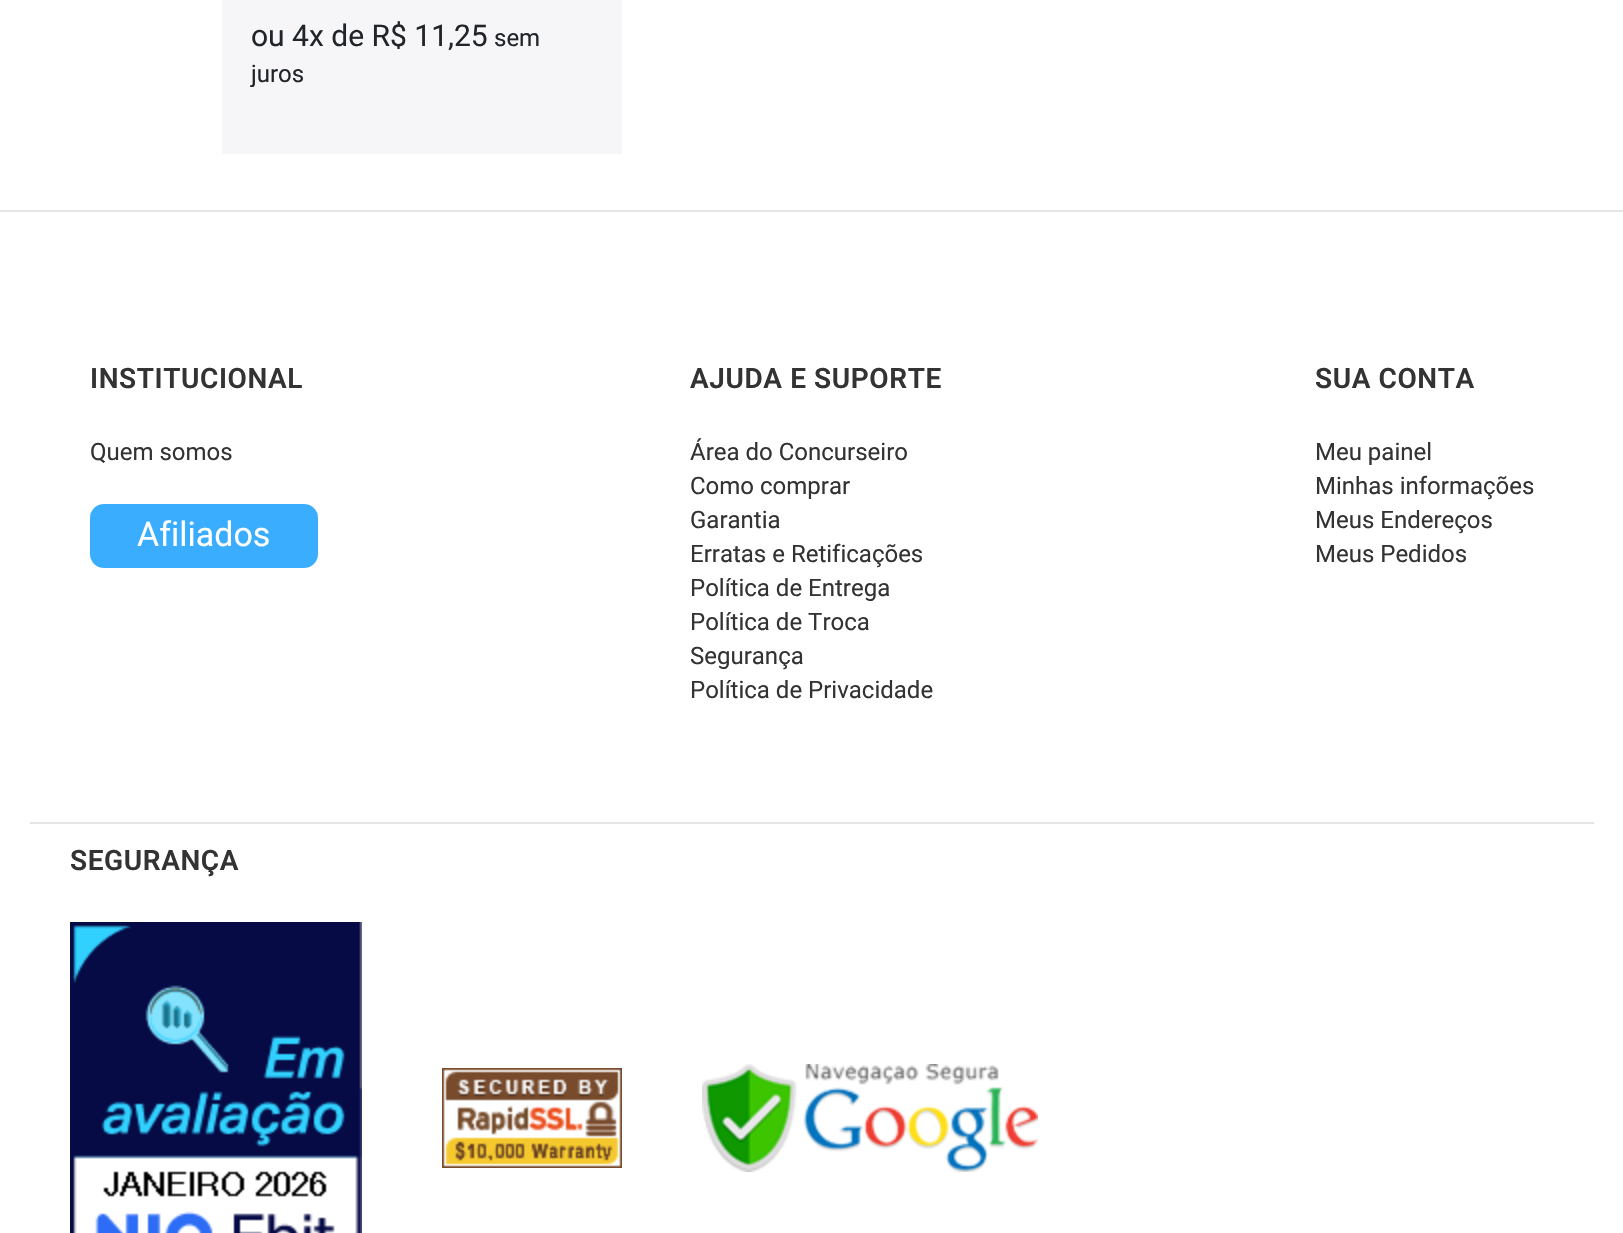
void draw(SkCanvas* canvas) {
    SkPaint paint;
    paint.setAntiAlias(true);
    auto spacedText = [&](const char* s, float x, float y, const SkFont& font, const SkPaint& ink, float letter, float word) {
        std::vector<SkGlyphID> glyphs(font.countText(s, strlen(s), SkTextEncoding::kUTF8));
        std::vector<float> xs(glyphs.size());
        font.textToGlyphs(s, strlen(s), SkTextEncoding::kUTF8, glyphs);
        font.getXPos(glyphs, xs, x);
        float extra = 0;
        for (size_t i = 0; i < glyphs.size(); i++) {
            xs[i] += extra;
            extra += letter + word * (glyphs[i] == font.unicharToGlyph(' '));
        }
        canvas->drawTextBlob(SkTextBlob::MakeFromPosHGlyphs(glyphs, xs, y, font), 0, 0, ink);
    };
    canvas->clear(0xFFFFFFFF);
    paint.setColor(0xFFF6F6F9);
    canvas->drawRect(SkRect::MakeXYWH(222, 0, 400, 154), paint);
    SkFont font1(fontMgr->matchFamilyStyle("Roboto", SkFontStyle::Normal()), 30);
    font1.setSubpixel(true);
    paint.setColor(0xFF212529);
    canvas->drawString("ou 4x de R$ 11,25", 251, 46, font1, paint);
    SkFont font2(fontMgr->matchFamilyStyle("Roboto", SkFontStyle::Normal()), 24);
    font2.setSubpixel(true);
    canvas->drawString("sem", 494, 46, font2, paint);
    canvas->drawString("juros", 251, 82, font2, paint);
    paint.setColor(0xFFE5E5E5);
    canvas->drawRect(SkRect::MakeXYWH(0, 210, 1623, 2), paint);
    canvas->drawRect(SkRect::MakeXYWH(30, 822, 1564, 2), paint);
    SkFont font3(fontMgr->matchFamilyStyle("Roboto", SkFontStyle(600, SkFontStyle::kNormal_Width, SkFontStyle::kUpright_Slant)), 28);
    font3.setSubpixel(true);
    paint.setColor(0xFF333333);
    spacedText("INSTITUCIONAL", 90, 388, font3, paint, 0.6f, 0);
    canvas->drawString("Quem somos", 90, 460, font2, paint);
    paint.setColor(0xFF3BADFF);
    canvas->drawRoundRect(SkRect::MakeXYWH(90, 504, 228, 64), 14, 14, paint);
    SkFont font4(fontMgr->matchFamilyStyle("Roboto", SkFontStyle::Normal()), 34);
    font4.setSubpixel(true);
    paint.setColor(0xFFFFFFFF);
    canvas->drawString("Afiliados", 137, 546, font4, paint);
    paint.setColor(0xFF333333);
    spacedText("AJUDA E SUPORTE", 690, 388, font3, paint, 0.6f, 0);
    canvas->drawString("Área do Concurseiro", 690, 460, font2, paint);
    canvas->drawString("Como comprar", 690, 494, font2, paint);
    canvas->drawString("Garantia", 690, 528, font2, paint);
    canvas->drawString("Erratas e Retificações", 690, 562, font2, paint);
    canvas->drawString("Política de Entrega", 690, 596, font2, paint);
    canvas->drawString("Política de Troca", 690, 630, font2, paint);
    canvas->drawString("Segurança", 690, 664, font2, paint);
    canvas->drawString("Política de Privacidade", 690, 698, font2, paint);
    spacedText("SUA CONTA", 1315, 388, font3, paint, 0.6f, 0);
    canvas->drawString("Meu painel", 1315, 460, font2, paint);
    canvas->drawString("Minhas informações", 1315, 494, font2, paint);
    canvas->drawString("Meus Endereços", 1315, 528, font2, paint);
    canvas->drawString("Meus Pedidos", 1315, 562, font2, paint);
    spacedText("SEGURANÇA", 70, 870, font3, paint, 0.6f, 0);
    canvas->drawImageRect(SkImages::DeferredFromEncodedData(SkData::MakeFromFileName("img1.png")), SkRect::MakeXYWH(70, 922, 292, 311), SkSamplingOptions());
    canvas->drawImageRect(SkImages::DeferredFromEncodedData(SkData::MakeFromFileName("img2.png")), SkRect::MakeXYWH(442, 1068, 180, 100), SkSamplingOptions());
    canvas->drawImageRect(SkImages::DeferredFromEncodedData(SkData::MakeFromFileName("img3.png")), SkRect::MakeXYWH(702, 1064, 336, 108), SkSamplingOptions());
}
